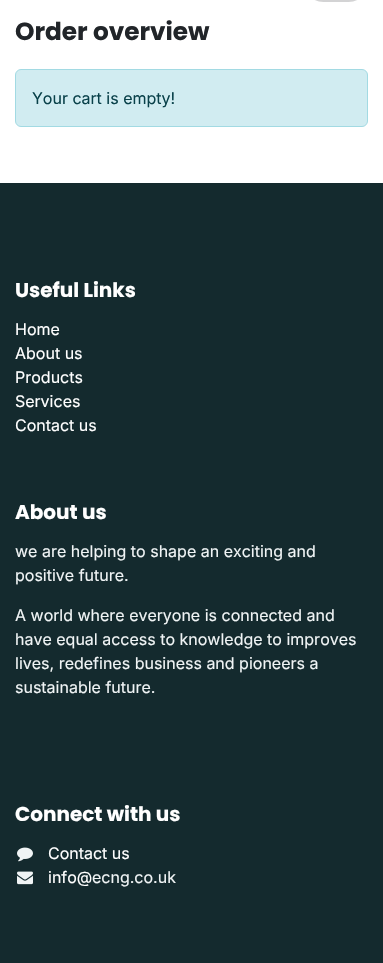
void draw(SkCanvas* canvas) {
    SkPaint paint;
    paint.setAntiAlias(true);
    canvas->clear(0xFFFFFFFF);
    paint.setStyle(SkPaint::kStroke_Style);
    paint.setStrokeWidth(5);
    paint.setColor(0xFFD3D3D4);
    canvas->drawRoundRect(SkRect::MakeXYWH(306.5f, -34.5f, 59, 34), 29.5f, 29.5f, paint);
    SkFont font1(fontMgr->matchFamilyStyle("Poppins", SkFontStyle::Bold()), 24.75f);
    font1.setSubpixel(true);
    paint.setStyle(SkPaint::kFill_Style);
    paint.setColor(0xFF212529);
    canvas->drawString("Order overview", 15, 40, font1, paint);
    paint.setColor(0xFFD1ECF1);
    canvas->drawRoundRect(SkRect::MakeXYWH(15.5f, 69.5f, 352, 57), 5.5f, 5.5f, paint);
    paint.setStyle(SkPaint::kStroke_Style);
    paint.setStrokeWidth(1);
    paint.setColor(0xFFA2DAE3);
    canvas->drawRoundRect(SkRect::MakeXYWH(15.5f, 69.5f, 352, 57), 5.5f, 5.5f, paint);
    SkFont font2(fontMgr->matchFamilyStyle("Inter", SkFontStyle::Normal()), 16);
    font2.setSubpixel(true);
    paint.setStyle(SkPaint::kFill_Style);
    paint.setColor(0xFF09414A);
    canvas->drawString("Your cart is empty!", 32, 104, font2, paint);
    paint.setColor(0xFF142A2E);
    canvas->drawRect(SkRect::MakeXYWH(0, 183, 383, 780), paint);
    SkFont font3(fontMgr->matchFamilyStyle("Poppins", SkFontStyle::Bold()), 20);
    font3.setSubpixel(true);
    paint.setColor(0xFFFFFFFF);
    canvas->drawString("Useful Links", 15, 297, font3, paint);
    canvas->drawString("Home", 15, 335, font2, paint);
    canvas->drawString("About us", 15, 359, font2, paint);
    canvas->drawString("Products", 15, 383, font2, paint);
    canvas->drawString("Services", 15, 407, font2, paint);
    canvas->drawString("Contact us", 15, 431, font2, paint);
    canvas->drawString("About us", 15, 519, font3, paint);
    paint.setColor(0xFFF0F4F5);
    canvas->drawString("we are helping to shape an exciting and", 15, 557, font2, paint);
    canvas->drawString("positive future.", 15, 581, font2, paint);
    canvas->drawString("A world where everyone is connected and", 15, 621, font2, paint);
    canvas->drawString("have equal access to knowledge to improves", 15, 645, font2, paint);
    canvas->drawString("lives, redefines business and pioneers a", 15, 669, font2, paint);
    canvas->drawString("sustainable future.", 15, 693, font2, paint);
    paint.setColor(0xFFFFFFFF);
    canvas->drawString("Connect with us", 15, 821, font3, paint);
    canvas->drawImageRect(SkImages::DeferredFromEncodedData(SkData::MakeFromFileName("img1.png")), SkRect::MakeXYWH(17, 847, 16, 15), SkSamplingOptions());
    canvas->drawString("Contact us", 48, 859, font2, paint);
    canvas->drawImageRect(SkImages::DeferredFromEncodedData(SkData::MakeFromFileName("img2.png")), SkRect::MakeXYWH(17, 871, 16, 14), SkSamplingOptions());
    canvas->drawString("info@", 48, 883, font2, paint);
    paint.setColor(0xFFF0F4F5);
    canvas->drawString("ecng.co.uk", 92, 883, font2, paint);
}
